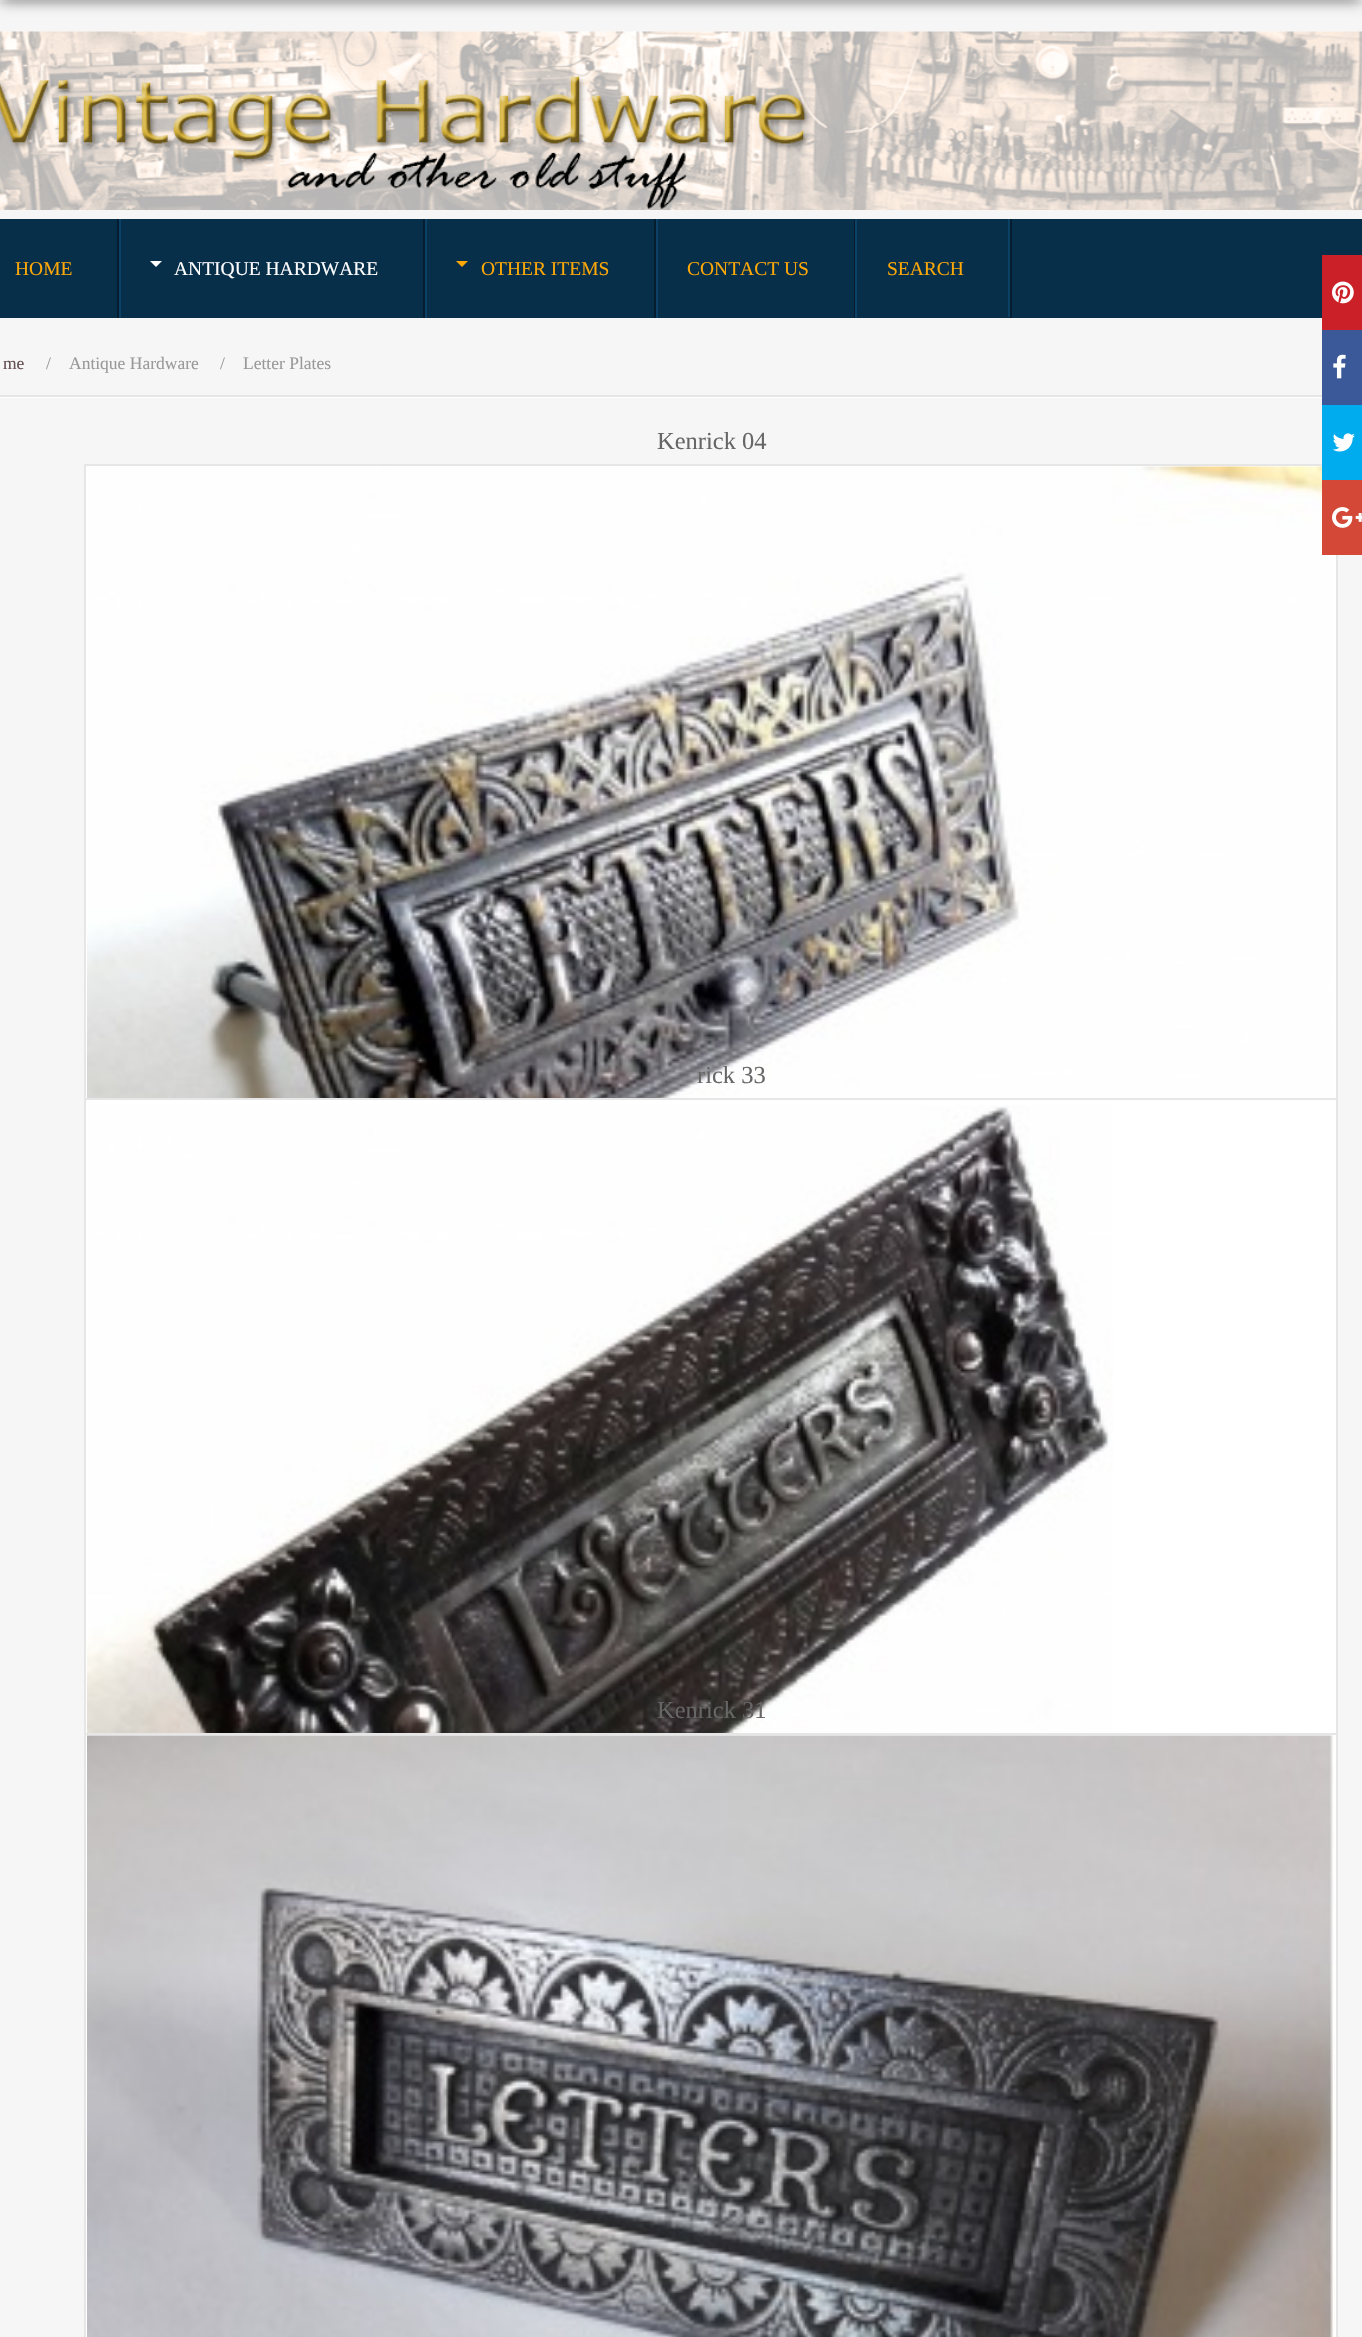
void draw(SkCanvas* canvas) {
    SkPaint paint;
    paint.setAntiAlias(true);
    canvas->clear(0xFFF6F6F6);
    paint.setColor(0xFFFFFFFF);
    canvas->drawRect(SkRect::MakeXYWH(0, 0, 1362, 2), paint);
    paint.setColor(0x99000000);
    paint.setMaskFilter(SkMaskFilter::MakeBlur(kNormal_SkBlurStyle, 7.5f));
    canvas->drawRect(SkRect::MakeXYWH(0, -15, 1362, 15), paint);
    paint.setMaskFilter(nullptr);
    canvas->drawImageRect(SkImages::DeferredFromEncodedData(SkData::MakeFromFileName("img1.png")), SkRect::MakeXYWH(0, 31, 1362, 179), SkSamplingOptions());
    paint.setColor(0xFF082F4A);
    canvas->drawRect(SkRect::MakeXYWH(0, 219, 1362, 99), paint);
    paint.setColor(0xFF051D2E);
    canvas->drawRect(SkRect::MakeXYWH(117, 219, 2, 99), paint);
    SkFont font1(fontMgr->matchFamilyStyle("Liberation Serif", SkFontStyle::Normal()), 19.5f);
    font1.setSubpixel(true);
    paint.setColor(0xFFFDA807);
    canvas->drawString("HOME", 15, 275, font1, paint);
    paint.setColor(0xFF051D2E);
    canvas->drawRect(SkRect::MakeXYWH(423, 219, 2, 99), paint);
    paint.setColor(0xFF0B4166);
    canvas->drawRect(SkRect::MakeXYWH(119, 219, 2, 99), paint);
    paint.setColor(0xFFFFFFFF);
    canvas->drawPath(SkPathBuilder().moveTo(150, 261).lineTo(162, 261).lineTo(156, 267).close().detach(), paint);
    canvas->drawString("ANTIQUE HARDWARE", 174, 275, font1, paint);
    paint.setColor(0xFF051D2E);
    canvas->drawRect(SkRect::MakeXYWH(654, 219, 2, 99), paint);
    paint.setColor(0xFF0B4166);
    canvas->drawRect(SkRect::MakeXYWH(425, 219, 2, 99), paint);
    paint.setColor(0xFFFDA807);
    canvas->drawPath(SkPathBuilder().moveTo(456, 261).lineTo(468, 261).lineTo(462, 267).close().detach(), paint);
    canvas->drawString("OTHER ITEMS", 481, 275, font1, paint);
    paint.setColor(0xFF051D2E);
    canvas->drawRect(SkRect::MakeXYWH(854, 219, 1, 99), paint);
    paint.setColor(0xFF0B4166);
    canvas->drawRect(SkRect::MakeXYWH(656, 219, 2, 99), paint);
    paint.setColor(0xFFFDA807);
    canvas->drawString("CONTACT US", 687, 275, font1, paint);
    paint.setColor(0xFF051D2E);
    canvas->drawRect(SkRect::MakeXYWH(1010, 219, 2, 99), paint);
    paint.setColor(0xFF0B4166);
    canvas->drawRect(SkRect::MakeXYWH(855, 219, 2, 99), paint);
    paint.setColor(0xFFFDA807);
    canvas->drawString("SEARCH", 887, 275, font1, paint);
    paint.setColor(0xFF0B4166);
    canvas->drawRect(SkRect::MakeXYWH(1008, 219, 2, 98), paint);
    paint.setColor(0xFFFFFFFF);
    canvas->drawRect(SkRect::MakeXYWH(0, 397, 1322, 1), paint);
    SkFont font2(fontMgr->matchFamilyStyle("Liberation Serif", SkFontStyle::Normal()), 17.5f);
    font2.setSubpixel(true);
    paint.setColor(0xFF644D52);
    canvas->drawString("me", 3, 369, font2, paint);
    paint.setColor(0xFF999999);
    canvas->drawString("/", 46, 369, font2, paint);
    canvas->drawString("Antique Hardware", 69, 369, font2, paint);
    canvas->drawString("/", 220, 369, font2, paint);
    canvas->drawString("Letter Plates", 243, 369, font2, paint);
    paint.setColor(0xFFE6E6E6);
    canvas->drawRect(SkRect::MakeXYWH(0, 395, 1322, 2), paint);
    SkFont font3(fontMgr->matchFamilyStyle("Liberation Serif", SkFontStyle::Normal()), 24.5f);
    font3.setSubpixel(true);
    paint.setColor(0xFF666666);
    canvas->drawString("Kenrick 04", 657, 449, font3, paint);
    paint.setColor(0xFFFFFFFF);
    canvas->drawRect(SkRect::MakeXYWH(86, 466, 1250, 632), paint);
    paint.setStyle(SkPaint::kStroke_Style);
    paint.setStrokeWidth(2);
    paint.setColor(0xFFE6E6E6);
    canvas->drawRect(SkRect::MakeXYWH(85, 465, 1252, 938), paint);
    canvas->drawImageRect(SkImages::DeferredFromEncodedData(SkData::MakeFromFileName("img2.png")), SkRect::MakeXYWH(87, 466, 1248, 632), SkSamplingOptions());
    paint.setStyle(SkPaint::kFill_Style);
    paint.setColor(0xFF666666);
    canvas->drawString("rick 33", 697, 1083, font3, paint);
    paint.setColor(0xFFFFFFFF);
    canvas->drawRect(SkRect::MakeXYWH(86, 1100, 1250, 633), paint);
    paint.setStyle(SkPaint::kStroke_Style);
    paint.setColor(0xFFE6E6E6);
    canvas->drawRect(SkRect::MakeXYWH(85, 1099, 1252, 939), paint);
    canvas->drawImageRect(SkImages::DeferredFromEncodedData(SkData::MakeFromFileName("img3.png")), SkRect::MakeXYWH(87, 1105, 1026, 628), SkSamplingOptions());
    paint.setStyle(SkPaint::kFill_Style);
    paint.setColor(0xFF666666);
    canvas->drawString("Kenrick 31", 657, 1718, font3, paint);
    paint.setColor(0xFFFFFFFF);
    canvas->drawRect(SkRect::MakeXYWH(85, 1734, 1252, 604), paint);
    paint.setStyle(SkPaint::kStroke_Style);
    paint.setColor(0xFFE6E6E6);
    canvas->drawRect(SkRect::MakeXYWH(85, 1734, 1252, 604), paint);
    canvas->drawImageRect(SkImages::DeferredFromEncodedData(SkData::MakeFromFileName("img4.png")), SkRect::MakeXYWH(87, 1735, 1248, 602), SkSamplingOptions());
    paint.setStyle(SkPaint::kFill_Style);
    paint.setColor(0xFFCB2027);
    canvas->drawRect(SkRect::MakeXYWH(1322, 255, 40, 75), paint);
    canvas->drawImageRect(SkImages::DeferredFromEncodedData(SkData::MakeFromFileName("img5.png")), SkRect::MakeXYWH(1332, 281, 22, 23), SkSamplingOptions());
    paint.setColor(0xFF3B5998);
    canvas->drawRect(SkRect::MakeXYWH(1322, 330, 40, 75), paint);
    canvas->drawImageRect(SkImages::DeferredFromEncodedData(SkData::MakeFromFileName("img6.png")), SkRect::MakeXYWH(1333, 354, 13, 25), SkSamplingOptions());
    paint.setColor(0xFF00ACED);
    canvas->drawRect(SkRect::MakeXYWH(1322, 405, 40, 75), paint);
    canvas->drawImageRect(SkImages::DeferredFromEncodedData(SkData::MakeFromFileName("img7.png")), SkRect::MakeXYWH(1332, 433, 23, 19), SkSamplingOptions());
    paint.setColor(0xFFD34836);
    canvas->drawRect(SkRect::MakeXYWH(1322, 480, 40, 75), paint);
    canvas->drawImageRect(SkImages::DeferredFromEncodedData(SkData::MakeFromFileName("img8.png")), SkRect::MakeXYWH(1332, 507, 30, 21), SkSamplingOptions());
}
